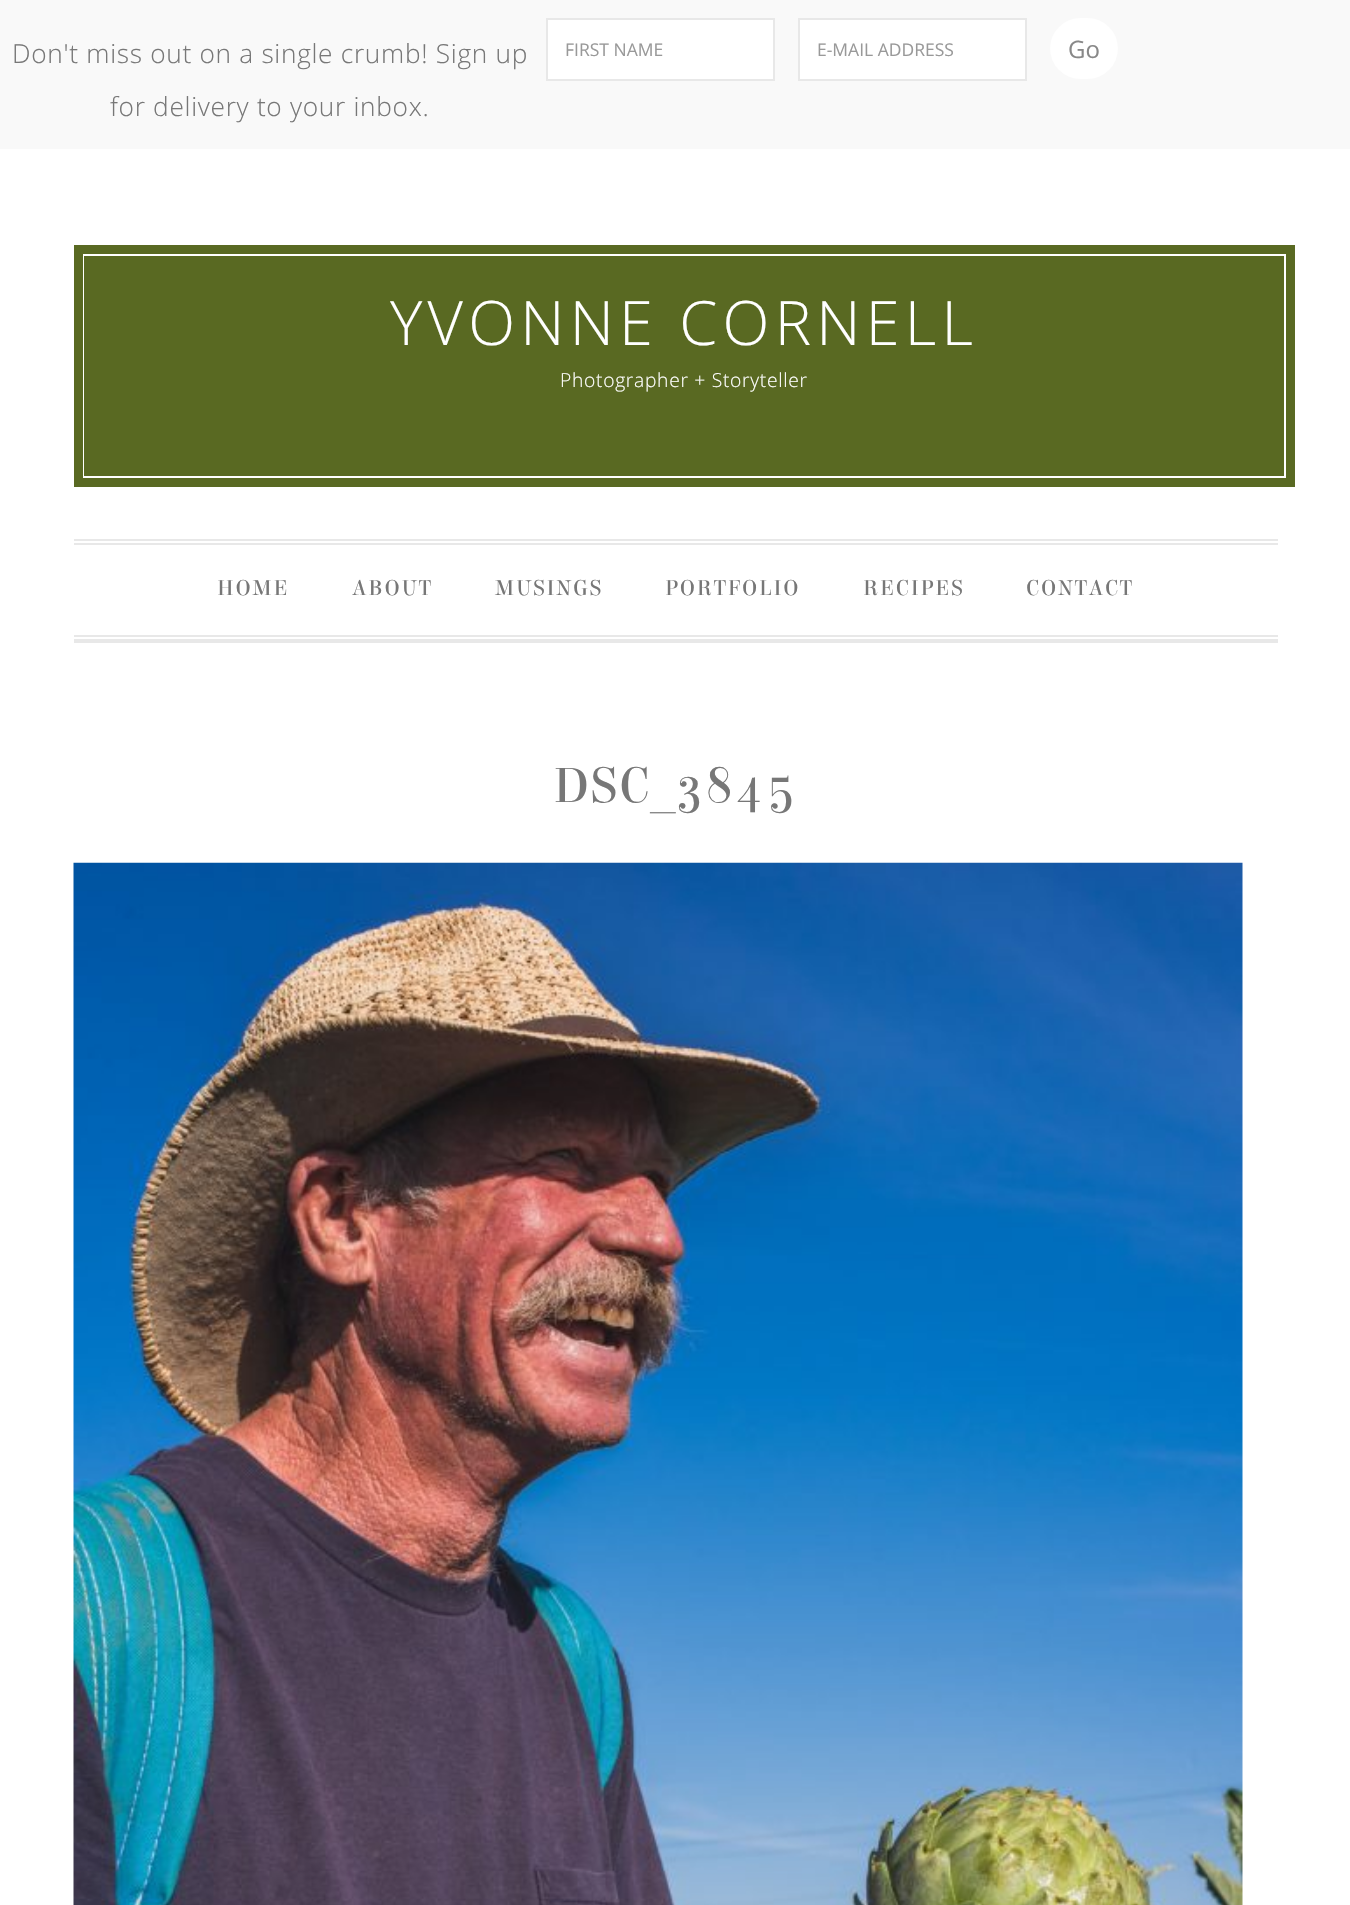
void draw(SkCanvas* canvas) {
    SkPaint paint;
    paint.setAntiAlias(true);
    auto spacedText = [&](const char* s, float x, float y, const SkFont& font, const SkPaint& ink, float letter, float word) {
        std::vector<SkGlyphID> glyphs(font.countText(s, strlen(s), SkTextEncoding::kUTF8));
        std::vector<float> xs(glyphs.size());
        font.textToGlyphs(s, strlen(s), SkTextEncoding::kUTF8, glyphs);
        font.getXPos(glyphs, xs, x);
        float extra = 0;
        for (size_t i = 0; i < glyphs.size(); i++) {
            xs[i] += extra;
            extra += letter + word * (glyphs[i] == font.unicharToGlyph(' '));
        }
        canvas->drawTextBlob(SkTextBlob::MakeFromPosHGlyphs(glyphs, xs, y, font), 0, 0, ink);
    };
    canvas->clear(0xFFFFFFFF);
    paint.setColor(0xFFF9F9F9);
    canvas->drawRect(SkRect::MakeXYWH(0, 0, 1350, 149), paint);
    SkFont font1(fontMgr->matchFamilyStyle("Open Sans", SkFontStyle(300, SkFontStyle::kNormal_Width, SkFontStyle::kUpright_Slant)), 26.25f);
    font1.setSubpixel(true);
    paint.setColor(0xFF777777);
    spacedText("Don't miss out on a single crumb! Sign up", 12, 63, font1, paint, 0.7f, 0);
    spacedText("for delivery to your inbox.", 110, 116, font1, paint, 0.7f, 0);
    paint.setColor(0xFFFFFFFF);
    canvas->drawRect(SkRect::MakeXYWH(547, 19, 227, 61), paint);
    paint.setStyle(SkPaint::kStroke_Style);
    paint.setStrokeWidth(2);
    paint.setColor(0xFFE8E8E8);
    canvas->drawRect(SkRect::MakeXYWH(547, 19, 227, 61), paint);
    SkFont font2(fontMgr->matchFamilyStyle("Open Sans", SkFontStyle::Normal()), 17.5f);
    font2.setSubpixel(true);
    paint.setStyle(SkPaint::kFill_Style);
    paint.setColor(0xFF999999);
    canvas->drawString("FIRST NAME", 565, 56, font2, paint);
    paint.setColor(0xFFFFFFFF);
    canvas->drawRect(SkRect::MakeXYWH(799, 19, 227, 61), paint);
    paint.setStyle(SkPaint::kStroke_Style);
    paint.setColor(0xFFE8E8E8);
    canvas->drawRect(SkRect::MakeXYWH(799, 19, 227, 61), paint);
    paint.setStyle(SkPaint::kFill_Style);
    paint.setColor(0xFF999999);
    canvas->drawString("E-MAIL ADDRESS", 817, 56, font2, paint);
    paint.setColor(0xFFFFFFFF);
    canvas->drawRoundRect(SkRect::MakeXYWH(1050, 18, 68, 61), 30.5f, 30.5f, paint);
    SkFont font3(fontMgr->matchFamilyStyle("Open Sans", SkFontStyle::Normal()), 24);
    font3.setSubpixel(true);
    paint.setColor(0xFF888888);
    canvas->drawString("Go", 1068, 58, font3, paint);
    paint.setColor(0xFFE8E8E8);
    canvas->drawRect(SkRect::MakeXYWH(74, 639, 1204, 4), paint);
    paint.setColor(0xFF596922);
    canvas->drawRect(SkRect::MakeXYWH(84, 256, 1200, 220), paint);
    paint.setStyle(SkPaint::kStroke_Style);
    paint.setStrokeWidth(9);
    canvas->drawRect(SkRect::MakeXYWH(78.5f, 249.5f, 1212, 233), paint);
    SkFont font4(fontMgr->matchFamilyStyle("Open Sans", SkFontStyle(300, SkFontStyle::kNormal_Width, SkFontStyle::kUpright_Slant)), 61.25f);
    font4.setSubpixel(true);
    paint.setStyle(SkPaint::kFill_Style);
    paint.setColor(0xFFFFFFFF);
    spacedText("YVONNE CORNELL", 390, 345, font4, paint, 5.25f, 0);
    SkFont font5(fontMgr->matchFamilyStyle("Open Sans", SkFontStyle(300, SkFontStyle::kNormal_Width, SkFontStyle::kUpright_Slant)), 19.25f);
    font5.setSubpixel(true);
    spacedText("Photographer + Storyteller", 560, 387, font5, paint, 0.7f, 0);
    paint.setColor(0xFFE8E8E8);
    canvas->drawRect(SkRect::MakeXYWH(74, 539, 1204, 2), paint);
    canvas->drawRect(SkRect::MakeXYWH(74, 543, 1204, 2), paint);
    canvas->drawRect(SkRect::MakeXYWH(74, 635, 1204, 2), paint);
    SkFont font6(fontMgr->matchFamilyStyle("Elsie", SkFontStyle::Normal()), 22.75f);
    font6.setSubpixel(true);
    paint.setColor(0xFF777777);
    spacedText("HOME", 217, 595, font6, paint, 1.75f, 0);
    spacedText("ABOUT", 352, 595, font6, paint, 1.75f, 0);
    spacedText("MUSINGS", 495, 595, font6, paint, 1.75f, 0);
    spacedText("PORTFOLIO", 665, 595, font6, paint, 1.75f, 0);
    spacedText("RECIPES", 863, 595, font6, paint, 1.75f, 0);
    spacedText("CONTACT", 1026, 595, font6, paint, 1.75f, 0);
    SkFont font7(fontMgr->matchFamilyStyle("Elsie", SkFontStyle::Normal()), 52.5f);
    font7.setSubpixel(true);
    spacedText("DSC_3845", 553, 802, font7, paint, 1.75f, 0);
    canvas->drawImageRect(SkImages::DeferredFromEncodedData(SkData::MakeFromFileName("img1.png")), SkRect::MakeXYWH(73, 862, 1170, 1043), SkSamplingOptions());
}
